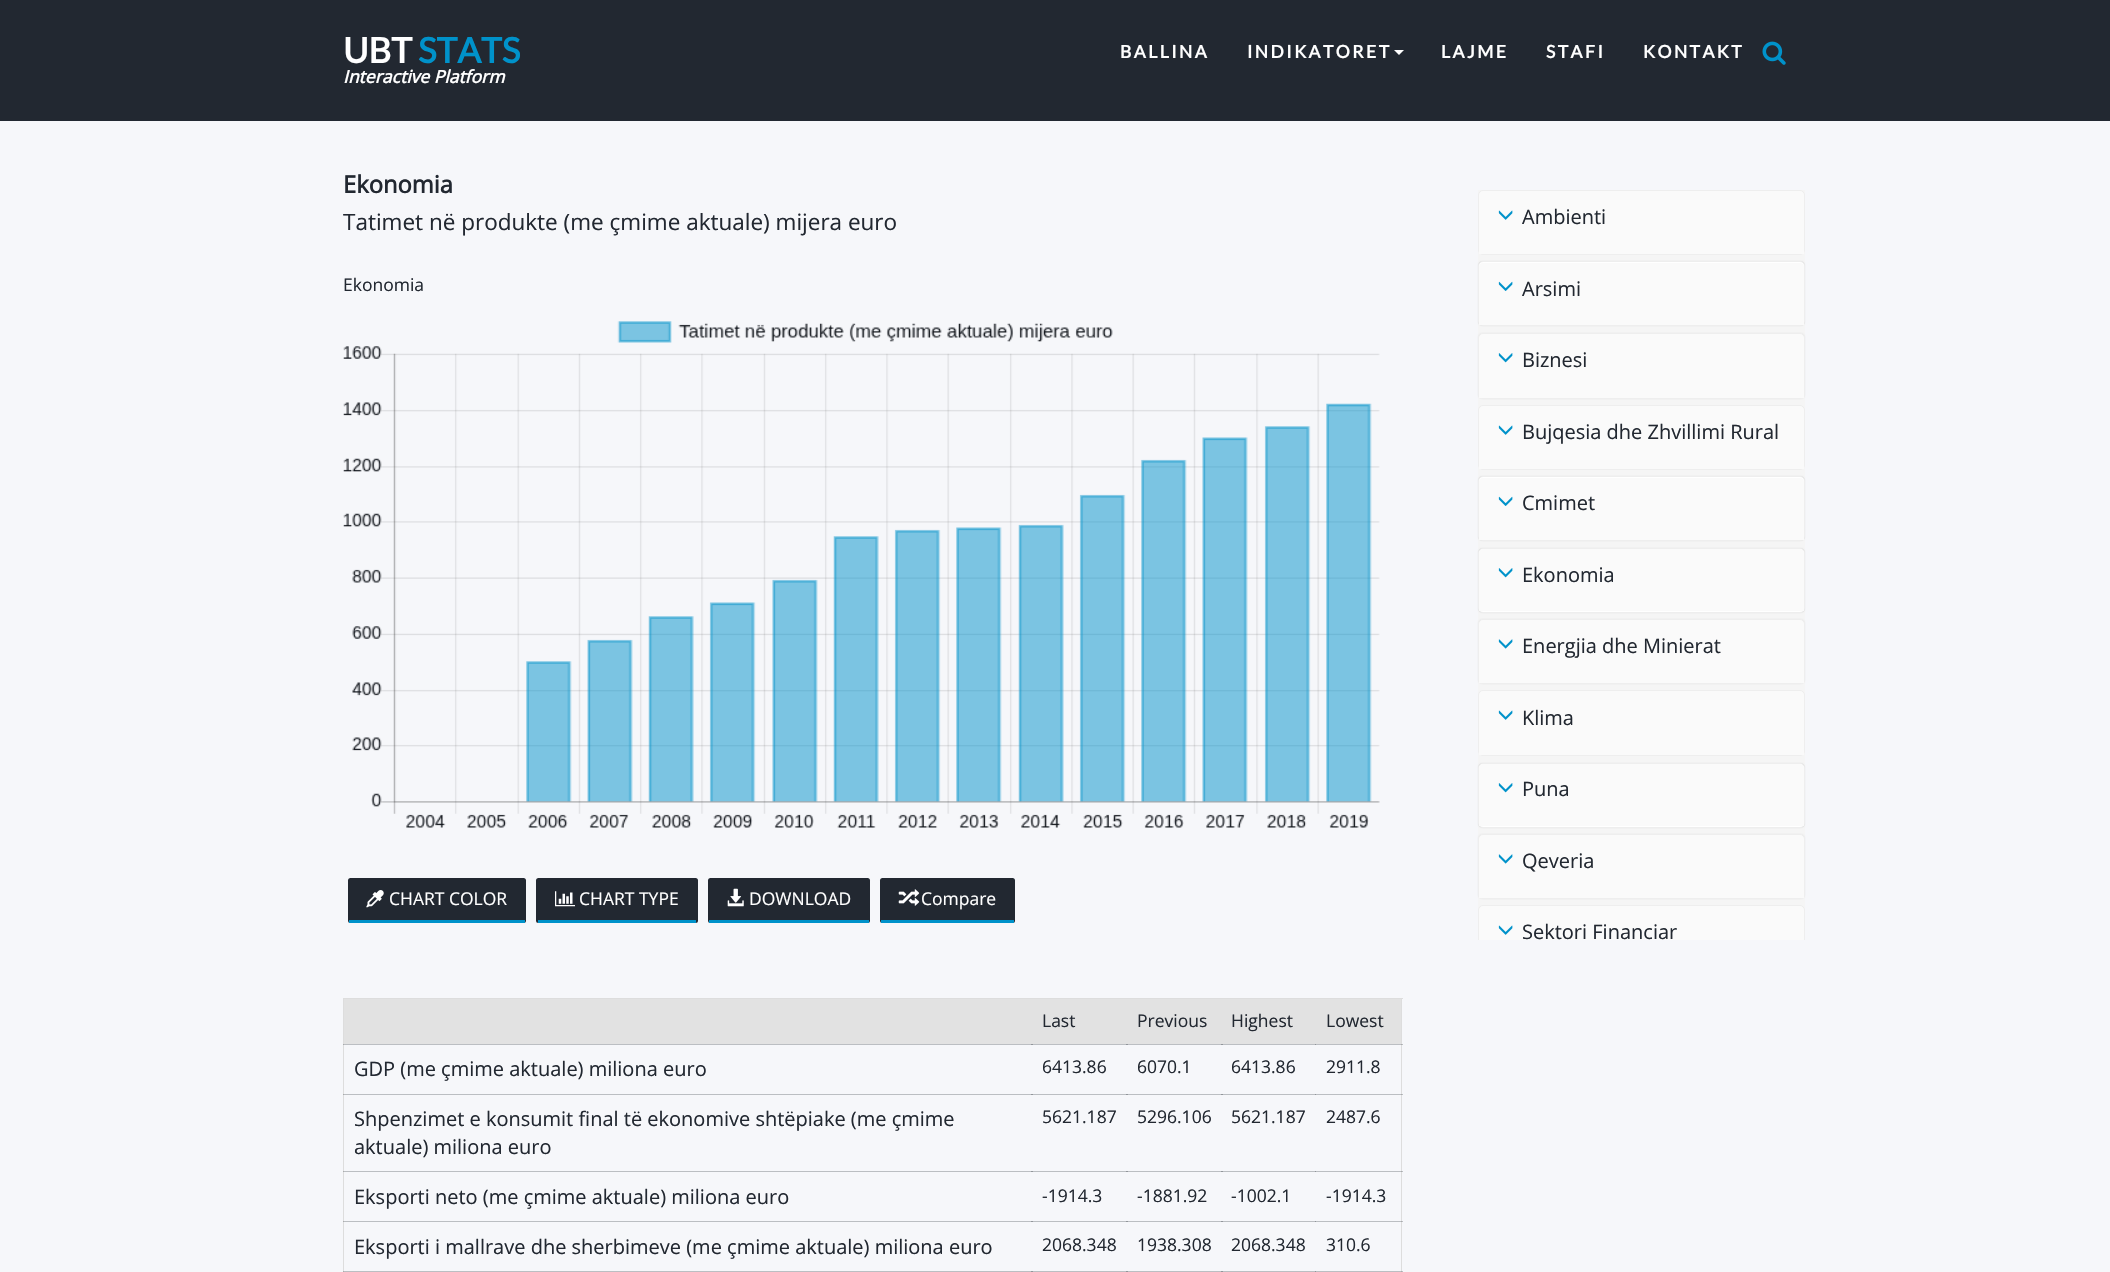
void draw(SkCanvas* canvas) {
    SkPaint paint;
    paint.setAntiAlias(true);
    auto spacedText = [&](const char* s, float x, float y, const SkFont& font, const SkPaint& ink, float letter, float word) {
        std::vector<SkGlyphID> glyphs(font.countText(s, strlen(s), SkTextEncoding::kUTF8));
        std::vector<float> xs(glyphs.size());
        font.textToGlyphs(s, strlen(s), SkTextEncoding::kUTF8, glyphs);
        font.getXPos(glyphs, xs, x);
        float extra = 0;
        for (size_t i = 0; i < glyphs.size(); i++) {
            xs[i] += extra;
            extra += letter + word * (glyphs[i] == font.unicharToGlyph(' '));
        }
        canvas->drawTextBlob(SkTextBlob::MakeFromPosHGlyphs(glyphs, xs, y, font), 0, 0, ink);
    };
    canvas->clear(0xFFF6F7FA);
    paint.setColor(0xFFBBBEC2);
    canvas->drawRect(SkRect::MakeXYWH(343, 1044, 1060, 1), paint);
    paint.setColor(0xFF91959A);
    canvas->drawRect(SkRect::MakeXYWH(1031, 1044, 2, 1), paint);
    canvas->drawRect(SkRect::MakeXYWH(1126, 1044, 2, 1), paint);
    canvas->drawRect(SkRect::MakeXYWH(1221, 1044, 2, 1), paint);
    canvas->drawRect(SkRect::MakeXYWH(1315, 1044, 1, 1), paint);
    paint.setColor(0xFFBBBEC2);
    canvas->drawRect(SkRect::MakeXYWH(343, 1094, 1060, 1), paint);
    paint.setColor(0xFF91959A);
    canvas->drawRect(SkRect::MakeXYWH(1031, 1094, 2, 1), paint);
    canvas->drawRect(SkRect::MakeXYWH(1126, 1094, 2, 1), paint);
    canvas->drawRect(SkRect::MakeXYWH(1221, 1094, 2, 1), paint);
    canvas->drawRect(SkRect::MakeXYWH(1315, 1094, 1, 1), paint);
    paint.setColor(0xFFBBBEC2);
    canvas->drawRect(SkRect::MakeXYWH(343, 1171, 1060, 1), paint);
    paint.setColor(0xFF91959A);
    canvas->drawRect(SkRect::MakeXYWH(1031, 1171, 2, 1), paint);
    canvas->drawRect(SkRect::MakeXYWH(1126, 1171, 2, 1), paint);
    canvas->drawRect(SkRect::MakeXYWH(1221, 1171, 2, 1), paint);
    canvas->drawRect(SkRect::MakeXYWH(1315, 1171, 1, 1), paint);
    paint.setColor(0xFFBBBEC2);
    canvas->drawRect(SkRect::MakeXYWH(343, 1221, 1060, 1), paint);
    paint.setColor(0xFF91959A);
    canvas->drawRect(SkRect::MakeXYWH(1031, 1221, 2, 1), paint);
    canvas->drawRect(SkRect::MakeXYWH(1126, 1221, 2, 1), paint);
    canvas->drawRect(SkRect::MakeXYWH(1221, 1221, 2, 1), paint);
    canvas->drawRect(SkRect::MakeXYWH(1315, 1221, 1, 1), paint);
    paint.setColor(0xFFBBBEC2);
    canvas->drawRect(SkRect::MakeXYWH(343, 1271, 1060, 1), paint);
    paint.setColor(0xFF91959A);
    canvas->drawRect(SkRect::MakeXYWH(1031, 1271, 2, 1), paint);
    canvas->drawRect(SkRect::MakeXYWH(1126, 1271, 2, 1), paint);
    canvas->drawRect(SkRect::MakeXYWH(1221, 1271, 2, 1), paint);
    canvas->drawRect(SkRect::MakeXYWH(1315, 1271, 1, 1), paint);
    paint.setColor(0xFF222831);
    canvas->drawRect(SkRect::MakeXYWH(0, 0, 2110, 121), paint);
    SkFont font1(fontMgr->matchFamilyStyle("Lato", SkFontStyle::Bold()), 35);
    font1.setSubpixel(true);
    paint.setColor(0xFFFFFFFF);
    canvas->drawString("UBT", 343, 63, font1, paint);
    paint.setColor(0xFF0092CA);
    canvas->drawString("STATS", 418, 63, font1, paint);
    SkFont font2(fontMgr->matchFamilyStyle("Open Sans", SkFontStyle::BoldItalic()), 17.5f);
    font2.setSubpixel(true);
    paint.setColor(0xFFFFFFFF);
    canvas->drawString("Interactive Platform", 343, 83, font2, paint);
    SkFont font3(fontMgr->matchFamilyStyle("Lato", SkFontStyle::Bold()), 17.5f);
    font3.setSubpixel(true);
    spacedText("BALLINA", 1120, 58, font3, paint, 2.5f, 0);
    spacedText("INDIKATORET", 1247, 58, font3, paint, 2.5f, 0);
    canvas->drawPath(SkPathBuilder().moveTo(1394, 50).lineTo(1404, 50).lineTo(1399, 55).close().detach(), paint);
    spacedText("LAJME", 1441, 58, font3, paint, 2.5f, 0);
    spacedText("STAFI", 1546, 58, font3, paint, 2.5f, 0);
    spacedText("KONTAKT", 1643, 58, font3, paint, 2.5f, 0);
    canvas->drawImageRect(SkImages::DeferredFromEncodedData(SkData::MakeFromFileName("img1.png")), SkRect::MakeXYWH(1762, 41, 24, 24), SkSamplingOptions());
    SkFont font4(fontMgr->matchFamilyStyle("Open Sans", SkFontStyle::Bold()), 23.75f);
    font4.setSubpixel(true);
    paint.setColor(0xFF222831);
    canvas->drawString("Ekonomia", 343, 193, font4, paint);
    SkFont font5(fontMgr->matchFamilyStyle("Open Sans", SkFontStyle::Normal()), 22.5f);
    font5.setSubpixel(true);
    canvas->drawString("Tatimet në produkte (me çmime aktuale) mijera euro", 343, 230, font5, paint);
    SkFont font6(fontMgr->matchFamilyStyle("Open Sans", SkFontStyle::Normal()), 17.5f);
    font6.setSubpixel(true);
    canvas->drawString("Ekonomia", 343, 291, font6, paint);
    canvas->drawImageRect(SkImages::DeferredFromEncodedData(SkData::MakeFromFileName("img2.png")), SkRect::MakeXYWH(343, 321, 1037, 507), SkSamplingOptions());
    canvas->drawRoundRect(SkRect::MakeXYWH(348, 878, 178, 45), 2.5f, 2.5f, paint);
    paint.setColor(0xFF0092CA);
    canvas->drawRect(SkRect::MakeXYWH(349, 920, 176, 3), paint);
    canvas->drawImageRect(SkImages::DeferredFromEncodedData(SkData::MakeFromFileName("img3.png")), SkRect::MakeXYWH(366, 890, 18, 18), SkSamplingOptions());
    paint.setColor(0xFFFFFFFF);
    canvas->drawString("CHART COLOR", 389, 905, font6, paint);
    paint.setColor(0xFF222831);
    canvas->drawRoundRect(SkRect::MakeXYWH(536, 878, 162, 45), 2.5f, 2.5f, paint);
    paint.setColor(0xFF0092CA);
    canvas->drawRect(SkRect::MakeXYWH(538, 920, 158, 3), paint);
    canvas->drawImageRect(SkImages::DeferredFromEncodedData(SkData::MakeFromFileName("img4.png")), SkRect::MakeXYWH(555, 891, 20, 16), SkSamplingOptions());
    paint.setColor(0xFFFFFFFF);
    canvas->drawString("CHART TYPE", 579, 905, font6, paint);
    paint.setColor(0xFF222831);
    canvas->drawRoundRect(SkRect::MakeXYWH(708, 878, 162, 45), 2.5f, 2.5f, paint);
    paint.setColor(0xFF0092CA);
    canvas->drawRect(SkRect::MakeXYWH(709, 920, 160, 3), paint);
    canvas->drawImageRect(SkImages::DeferredFromEncodedData(SkData::MakeFromFileName("img5.png")), SkRect::MakeXYWH(727, 888, 17, 19), SkSamplingOptions());
    paint.setColor(0xFFFFFFFF);
    canvas->drawString("DOWNLOAD", 749, 905, font6, paint);
    paint.setColor(0xFF222831);
    canvas->drawRoundRect(SkRect::MakeXYWH(880, 878, 135, 45), 2.5f, 2.5f, paint);
    paint.setColor(0xFF0092CA);
    canvas->drawRect(SkRect::MakeXYWH(881, 920, 133, 3), paint);
    canvas->drawImageRect(SkImages::DeferredFromEncodedData(SkData::MakeFromFileName("img6.png")), SkRect::MakeXYWH(898, 889, 22, 17), SkSamplingOptions());
    paint.setColor(0xFFFFFFFF);
    canvas->drawString("Compare", 921, 905, font6, paint);
    paint.setColor(0xFFDDDDDD);
    canvas->drawRect(SkRect::MakeXYWH(343, 998, 1060, 1), paint);
    canvas->drawRect(SkRect::MakeXYWH(1401, 998, 1, 274), paint);
    paint.setColor(0xFFA9ABAD);
    canvas->drawRect(SkRect::MakeXYWH(1401, 1044, 1, 1), paint);
    canvas->drawRect(SkRect::MakeXYWH(1401, 1094, 1, 1), paint);
    canvas->drawRect(SkRect::MakeXYWH(1401, 1171, 1, 1), paint);
    canvas->drawRect(SkRect::MakeXYWH(1401, 1221, 1, 1), paint);
    canvas->drawRect(SkRect::MakeXYWH(1401, 1271, 1, 1), paint);
    paint.setColor(0xFFDDDDDD);
    canvas->drawRect(SkRect::MakeXYWH(343, 998, 1, 274), paint);
    paint.setColor(0xFFA9ABAD);
    canvas->drawRect(SkRect::MakeXYWH(343, 1044, 1, 1), paint);
    canvas->drawRect(SkRect::MakeXYWH(343, 1094, 1, 1), paint);
    canvas->drawRect(SkRect::MakeXYWH(343, 1171, 1, 1), paint);
    canvas->drawRect(SkRect::MakeXYWH(343, 1221, 1, 1), paint);
    canvas->drawRect(SkRect::MakeXYWH(343, 1271, 1, 1), paint);
    paint.setColor(0xFFE2E2E2);
    canvas->drawRect(SkRect::MakeXYWH(344, 999, 1057, 45), paint);
    paint.setColor(0xFF222831);
    canvas->drawString("Last", 1042, 1027, font6, paint);
    canvas->drawString("Previous", 1137, 1027, font6, paint);
    canvas->drawString("Highest", 1231, 1027, font6, paint);
    canvas->drawString("Lowest", 1326, 1027, font6, paint);
    SkFont font7(fontMgr->matchFamilyStyle("Open Sans", SkFontStyle::Normal()), 20);
    font7.setSubpixel(true);
    canvas->drawString("GDP (me çmime aktuale) miliona euro", 354, 1076, font7, paint);
    canvas->drawString("6413.86", 1042, 1073, font6, paint);
    canvas->drawString("6070.1", 1137, 1073, font6, paint);
    canvas->drawString("6413.86", 1231, 1073, font6, paint);
    canvas->drawString("2911.8", 1326, 1073, font6, paint);
    canvas->drawString("Shpenzimet e konsumit final të ekonomive shtëpiake (me çmime", 354, 1126, font7, paint);
    canvas->drawString("aktuale) miliona euro", 354, 1154, font7, paint);
    canvas->drawString("5621.187", 1042, 1123, font6, paint);
    canvas->drawString("5296.106", 1137, 1123, font6, paint);
    canvas->drawString("5621.187", 1231, 1123, font6, paint);
    canvas->drawString("2487.6", 1326, 1123, font6, paint);
    canvas->drawString("Eksporti neto (me çmime aktuale) miliona euro", 354, 1204, font7, paint);
    canvas->drawString("-1914.3", 1042, 1202, font6, paint);
    canvas->drawString("-1881.92", 1137, 1202, font6, paint);
    canvas->drawString("-1002.1", 1231, 1202, font6, paint);
    canvas->drawString("-1914.3", 1326, 1202, font6, paint);
    canvas->drawString("Eksporti i mallrave dhe sherbimeve (me çmime aktuale) miliona euro", 354, 1254, font7, paint);
    canvas->drawString("2068.348", 1042, 1251, font6, paint);
    canvas->drawString("1938.308", 1137, 1251, font6, paint);
    canvas->drawString("2068.348", 1231, 1251, font6, paint);
    canvas->drawString("310.6", 1326, 1251, font6, paint);
    paint.setColor(0xFFF5F5F5);
    canvas->drawRect(SkRect::MakeXYWH(1478, 190, 327, 720), paint);
    paint.setStyle(SkPaint::kStroke_Style);
    paint.setStrokeWidth(1);
    paint.setColor(0xFFEEEEEE);
    canvas->drawRoundRect(SkRect::MakeXYWH(1478.5f, 190.5f, 326, 64), 4.5f, 4.5f, paint);
    paint.setStyle(SkPaint::kFill_Style);
    paint.setColor(0xFFFAFAFA);
    canvas->drawPath(SkPathBuilder().moveTo(1483, 191).lineTo(1800, 191).cubicTo(1802, 191, 1804, 193, 1804, 195).lineTo(1804, 254).lineTo(1479, 254).lineTo(1479, 195).cubicTo(1479, 193, 1481, 191, 1483, 191).close().detach(), paint);
    canvas->drawImageRect(SkImages::DeferredFromEncodedData(SkData::MakeFromFileName("img7.png")), SkRect::MakeXYWH(1498, 210, 15, 10), SkSamplingOptions());
    paint.setColor(0xFF222831);
    canvas->drawString("Ambienti", 1522, 224, font7, paint);
    paint.setColor(0xFFD3D3D3);
    paint.setMaskFilter(SkMaskFilter::MakeBlur(kNormal_SkBlurStyle, 0.5f));
    canvas->drawRoundRect(SkRect::MakeXYWH(1478, 261, 327, 65), 5, 5, paint);
    paint.setMaskFilter(nullptr);
    paint.setColor(0xFFFFFFFF);
    canvas->drawRoundRect(SkRect::MakeXYWH(1478.5f, 261.5f, 326, 64), 4.5f, 4.5f, paint);
    paint.setStyle(SkPaint::kStroke_Style);
    paint.setColor(0xFFEEEEEE);
    canvas->drawRoundRect(SkRect::MakeXYWH(1478.5f, 261.5f, 326, 64), 4.5f, 4.5f, paint);
    paint.setStyle(SkPaint::kFill_Style);
    paint.setColor(0xFFFAFAFA);
    canvas->drawPath(SkPathBuilder().moveTo(1483, 263).lineTo(1800, 263).cubicTo(1802, 263, 1804, 265, 1804, 267).lineTo(1804, 325).lineTo(1479, 325).lineTo(1479, 267).cubicTo(1479, 265, 1481, 263, 1483, 263).close().detach(), paint);
    canvas->drawImageRect(SkImages::DeferredFromEncodedData(SkData::MakeFromFileName("img8.png")), SkRect::MakeXYWH(1498, 281, 15, 10), SkSamplingOptions());
    paint.setColor(0xFF222831);
    canvas->drawString("Arsimi", 1522, 296, font7, paint);
    canvas->save();
    canvas->clipPath(SkPathBuilder(SkPathFillType::kEvenOdd).moveTo(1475, 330).lineTo(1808, 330).lineTo(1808, 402).lineTo(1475, 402).close().moveTo(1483, 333).lineTo(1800, 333).cubicTo(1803, 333, 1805, 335, 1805, 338).lineTo(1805, 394).cubicTo(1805, 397, 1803, 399, 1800, 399).lineTo(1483, 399).cubicTo(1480, 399, 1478, 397, 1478, 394).lineTo(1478, 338).cubicTo(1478, 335, 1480, 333, 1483, 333).close().detach(), true);
    paint.setColor(0xFFD3D3D3);
    paint.setMaskFilter(SkMaskFilter::MakeBlur(kNormal_SkBlurStyle, 0.5f));
    canvas->drawRoundRect(SkRect::MakeXYWH(1478, 333, 327, 66), 5, 5, paint);
    paint.setMaskFilter(nullptr);
    canvas->restore();
    paint.setStyle(SkPaint::kStroke_Style);
    paint.setColor(0xFFEEEEEE);
    canvas->drawRoundRect(SkRect::MakeXYWH(1478.5f, 333.5f, 326, 65), 4.5f, 4.5f, paint);
    paint.setStyle(SkPaint::kFill_Style);
    paint.setColor(0xFFFAFAFA);
    canvas->drawPath(SkPathBuilder().moveTo(1483, 334).lineTo(1800, 334).cubicTo(1802, 334, 1804, 336, 1804, 338).lineTo(1804, 398).lineTo(1479, 398).lineTo(1479, 338).cubicTo(1479, 336, 1481, 334, 1483, 334).close().detach(), paint);
    canvas->drawImageRect(SkImages::DeferredFromEncodedData(SkData::MakeFromFileName("img9.png")), SkRect::MakeXYWH(1498, 353, 15, 10), SkSamplingOptions());
    paint.setColor(0xFF222831);
    canvas->drawString("Biznesi", 1522, 367, font7, paint);
    paint.setStyle(SkPaint::kStroke_Style);
    paint.setColor(0xFFEEEEEE);
    canvas->drawRoundRect(SkRect::MakeXYWH(1478.5f, 405.5f, 326, 64), 4.5f, 4.5f, paint);
    paint.setStyle(SkPaint::kFill_Style);
    paint.setColor(0xFFFAFAFA);
    canvas->drawPath(SkPathBuilder().moveTo(1483, 406).lineTo(1800, 406).cubicTo(1802, 406, 1804, 408, 1804, 410).lineTo(1804, 469).lineTo(1479, 469).lineTo(1479, 410).cubicTo(1479, 408, 1481, 406, 1483, 406).close().detach(), paint);
    canvas->drawImageRect(SkImages::DeferredFromEncodedData(SkData::MakeFromFileName("img7.png")), SkRect::MakeXYWH(1498, 425, 15, 10), SkSamplingOptions());
    paint.setColor(0xFF222831);
    canvas->drawString("Bujqesia dhe Zhvillimi Rural", 1522, 439, font7, paint);
    paint.setColor(0xFFD3D3D3);
    paint.setMaskFilter(SkMaskFilter::MakeBlur(kNormal_SkBlurStyle, 0.5f));
    canvas->drawRoundRect(SkRect::MakeXYWH(1478, 476, 327, 65), 5, 5, paint);
    paint.setMaskFilter(nullptr);
    paint.setColor(0xFFFFFFFF);
    canvas->drawRoundRect(SkRect::MakeXYWH(1478.5f, 476.5f, 326, 64), 4.5f, 4.5f, paint);
    paint.setStyle(SkPaint::kStroke_Style);
    paint.setColor(0xFFEEEEEE);
    canvas->drawRoundRect(SkRect::MakeXYWH(1478.5f, 476.5f, 326, 64), 4.5f, 4.5f, paint);
    paint.setStyle(SkPaint::kFill_Style);
    paint.setColor(0xFFFAFAFA);
    canvas->drawPath(SkPathBuilder().moveTo(1483, 478).lineTo(1800, 478).cubicTo(1802, 478, 1804, 480, 1804, 482).lineTo(1804, 540).lineTo(1479, 540).lineTo(1479, 482).cubicTo(1479, 480, 1481, 478, 1483, 478).close().detach(), paint);
    canvas->drawImageRect(SkImages::DeferredFromEncodedData(SkData::MakeFromFileName("img8.png")), SkRect::MakeXYWH(1498, 496, 15, 10), SkSamplingOptions());
    paint.setColor(0xFF222831);
    canvas->drawString("Cmimet", 1522, 510, font7, paint);
    paint.setColor(0xFFD3D3D3);
    paint.setMaskFilter(SkMaskFilter::MakeBlur(kNormal_SkBlurStyle, 0.5f));
    canvas->drawRoundRect(SkRect::MakeXYWH(1478, 548, 327, 65), 5, 5, paint);
    paint.setMaskFilter(nullptr);
    paint.setColor(0xFFFFFFFF);
    canvas->drawRoundRect(SkRect::MakeXYWH(1478.5f, 548.5f, 326, 64), 4.5f, 4.5f, paint);
    paint.setStyle(SkPaint::kStroke_Style);
    paint.setColor(0xFFEEEEEE);
    canvas->drawRoundRect(SkRect::MakeXYWH(1478.5f, 548.5f, 326, 64), 4.5f, 4.5f, paint);
    paint.setStyle(SkPaint::kFill_Style);
    paint.setColor(0xFFFAFAFA);
    canvas->drawPath(SkPathBuilder().moveTo(1483, 549).lineTo(1800, 549).cubicTo(1802, 549, 1804, 551, 1804, 553).lineTo(1804, 611).lineTo(1479, 611).lineTo(1479, 553).cubicTo(1479, 551, 1481, 549, 1483, 549).close().detach(), paint);
    canvas->drawImageRect(SkImages::DeferredFromEncodedData(SkData::MakeFromFileName("img9.png")), SkRect::MakeXYWH(1498, 568, 15, 10), SkSamplingOptions());
    paint.setColor(0xFF222831);
    canvas->drawString("Ekonomia", 1522, 582, font7, paint);
    canvas->save();
    canvas->clipPath(SkPathBuilder(SkPathFillType::kEvenOdd).moveTo(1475, 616).lineTo(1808, 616).lineTo(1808, 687).lineTo(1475, 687).close().moveTo(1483, 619).lineTo(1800, 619).cubicTo(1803, 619, 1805, 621, 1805, 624).lineTo(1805, 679).cubicTo(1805, 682, 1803, 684, 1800, 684).lineTo(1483, 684).cubicTo(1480, 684, 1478, 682, 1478, 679).lineTo(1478, 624).cubicTo(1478, 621, 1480, 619, 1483, 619).close().detach(), true);
    paint.setColor(0xFFD3D3D3);
    paint.setMaskFilter(SkMaskFilter::MakeBlur(kNormal_SkBlurStyle, 0.5f));
    canvas->drawRoundRect(SkRect::MakeXYWH(1478, 619, 327, 65), 5, 5, paint);
    paint.setMaskFilter(nullptr);
    canvas->restore();
    paint.setStyle(SkPaint::kStroke_Style);
    paint.setColor(0xFFEEEEEE);
    canvas->drawRoundRect(SkRect::MakeXYWH(1478.5f, 619.5f, 326, 64), 4.5f, 4.5f, paint);
    paint.setStyle(SkPaint::kFill_Style);
    paint.setColor(0xFFFAFAFA);
    canvas->drawPath(SkPathBuilder().moveTo(1483, 620).lineTo(1800, 620).cubicTo(1802, 620, 1804, 622, 1804, 624).lineTo(1804, 683).lineTo(1479, 683).lineTo(1479, 624).cubicTo(1479, 622, 1481, 620, 1483, 620).close().detach(), paint);
    canvas->drawImageRect(SkImages::DeferredFromEncodedData(SkData::MakeFromFileName("img10.png")), SkRect::MakeXYWH(1498, 639, 15, 10), SkSamplingOptions());
    paint.setColor(0xFF222831);
    canvas->drawString("Energjia dhe Minierat", 1522, 653, font7, paint);
    paint.setStyle(SkPaint::kStroke_Style);
    paint.setColor(0xFFEEEEEE);
    canvas->drawRoundRect(SkRect::MakeXYWH(1478.5f, 690.5f, 326, 65), 4.5f, 4.5f, paint);
    paint.setStyle(SkPaint::kFill_Style);
    paint.setColor(0xFFFAFAFA);
    canvas->drawPath(SkPathBuilder().moveTo(1483, 691).lineTo(1800, 691).cubicTo(1802, 691, 1804, 693, 1804, 695).lineTo(1804, 755).lineTo(1479, 755).lineTo(1479, 695).cubicTo(1479, 693, 1481, 691, 1483, 691).close().detach(), paint);
    canvas->drawImageRect(SkImages::DeferredFromEncodedData(SkData::MakeFromFileName("img7.png")), SkRect::MakeXYWH(1498, 710, 15, 10), SkSamplingOptions());
    paint.setColor(0xFF222831);
    canvas->drawString("Klima", 1522, 725, font7, paint);
    paint.setColor(0xFFD3D3D3);
    paint.setMaskFilter(SkMaskFilter::MakeBlur(kNormal_SkBlurStyle, 0.5f));
    canvas->drawRoundRect(SkRect::MakeXYWH(1478, 763, 327, 65), 5, 5, paint);
    paint.setMaskFilter(nullptr);
    paint.setColor(0xFFFFFFFF);
    canvas->drawRoundRect(SkRect::MakeXYWH(1478.5f, 763.5f, 326, 64), 4.5f, 4.5f, paint);
    paint.setStyle(SkPaint::kStroke_Style);
    paint.setColor(0xFFEEEEEE);
    canvas->drawRoundRect(SkRect::MakeXYWH(1478.5f, 763.5f, 326, 64), 4.5f, 4.5f, paint);
    paint.setStyle(SkPaint::kFill_Style);
    paint.setColor(0xFFFAFAFA);
    canvas->drawPath(SkPathBuilder().moveTo(1483, 764).lineTo(1800, 764).cubicTo(1802, 764, 1804, 766, 1804, 768).lineTo(1804, 826).lineTo(1479, 826).lineTo(1479, 768).cubicTo(1479, 766, 1481, 764, 1483, 764).close().detach(), paint);
    canvas->drawImageRect(SkImages::DeferredFromEncodedData(SkData::MakeFromFileName("img9.png")), SkRect::MakeXYWH(1498, 783, 15, 10), SkSamplingOptions());
    paint.setColor(0xFF222831);
    canvas->drawString("Puna", 1522, 796, font7, paint);
    canvas->save();
    canvas->clipPath(SkPathBuilder(SkPathFillType::kEvenOdd).moveTo(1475, 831).lineTo(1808, 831).lineTo(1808, 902).lineTo(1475, 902).close().moveTo(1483, 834).lineTo(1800, 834).cubicTo(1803, 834, 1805, 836, 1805, 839).lineTo(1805, 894).cubicTo(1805, 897, 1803, 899, 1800, 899).lineTo(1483, 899).cubicTo(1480, 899, 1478, 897, 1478, 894).lineTo(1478, 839).cubicTo(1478, 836, 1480, 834, 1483, 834).close().detach(), true);
    paint.setColor(0xFFD3D3D3);
    paint.setMaskFilter(SkMaskFilter::MakeBlur(kNormal_SkBlurStyle, 0.5f));
    canvas->drawRoundRect(SkRect::MakeXYWH(1478, 834, 327, 65), 5, 5, paint);
    paint.setMaskFilter(nullptr);
    canvas->restore();
    paint.setStyle(SkPaint::kStroke_Style);
    paint.setColor(0xFFEEEEEE);
    canvas->drawRoundRect(SkRect::MakeXYWH(1478.5f, 834.5f, 326, 64), 4.5f, 4.5f, paint);
    paint.setStyle(SkPaint::kFill_Style);
    paint.setColor(0xFFFAFAFA);
    canvas->drawPath(SkPathBuilder().moveTo(1483, 835).lineTo(1800, 835).cubicTo(1802, 835, 1804, 837, 1804, 839).lineTo(1804, 898).lineTo(1479, 898).lineTo(1479, 839).cubicTo(1479, 837, 1481, 835, 1483, 835).close().detach(), paint);
    canvas->drawImageRect(SkImages::DeferredFromEncodedData(SkData::MakeFromFileName("img10.png")), SkRect::MakeXYWH(1498, 854, 15, 10), SkSamplingOptions());
    paint.setColor(0xFF222831);
    canvas->drawString("Qeveria", 1522, 868, font7, paint);
    canvas->save();
    canvas->clipRect(SkRect::MakeXYWH(1478, 190, 327, 750));
    paint.setStyle(SkPaint::kStroke_Style);
    paint.setColor(0xFFEEEEEE);
    canvas->drawRoundRect(SkRect::MakeXYWH(1478.5f, 905.5f, 326, 64), 4.5f, 4.5f, paint);
    canvas->restore();
    paint.setStyle(SkPaint::kFill_Style);
    paint.setColor(0xFFFAFAFA);
    canvas->drawPath(SkPathBuilder().moveTo(1483, 906).lineTo(1800, 906).cubicTo(1802, 906, 1804, 908, 1804, 910).lineTo(1804, 940).lineTo(1479, 940).lineTo(1479, 910).cubicTo(1479, 908, 1481, 906, 1483, 906).close().detach(), paint);
    canvas->drawImageRect(SkImages::DeferredFromEncodedData(SkData::MakeFromFileName("img7.png")), SkRect::MakeXYWH(1498, 925, 15, 10), SkSamplingOptions());
    paint.setColor(0xFF222831);
    canvas->drawString("Sektori Financiar", 1522, 939, font7, paint);
}
